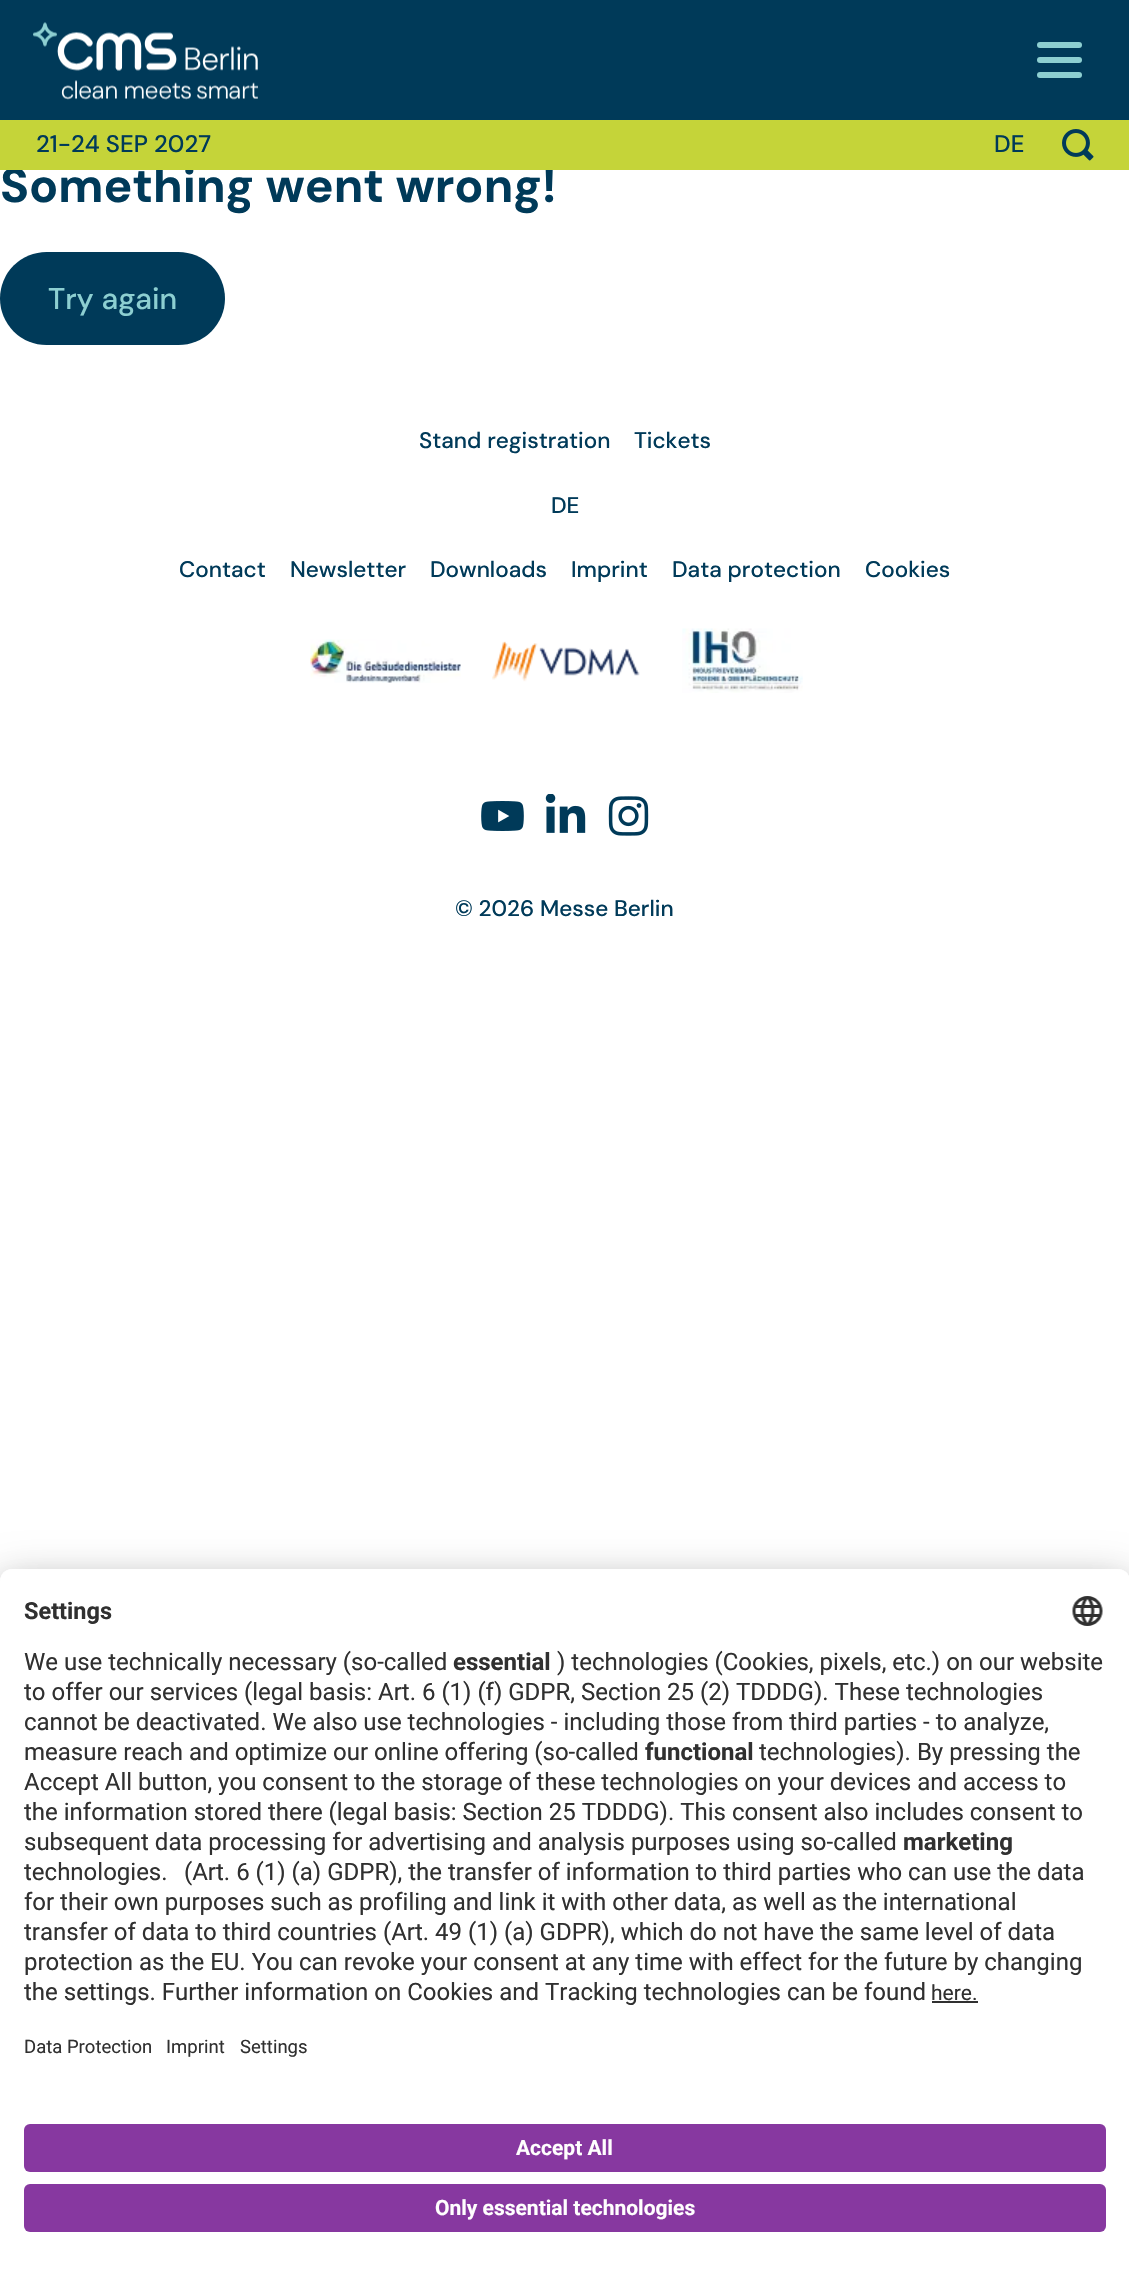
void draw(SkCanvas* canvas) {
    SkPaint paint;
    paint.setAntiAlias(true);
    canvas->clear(0xFFFFFFFF);
    paint.setColor(0xFF003A59);
    canvas->drawRect(SkRect::MakeXYWH(0, 0, 1129, 120), paint);
    canvas->drawImageRect(SkImages::DeferredFromEncodedData(SkData::MakeFromFileName("img1.png")), SkRect::MakeXYWH(33, 22, 225, 78), SkSamplingOptions());
    paint.setColor(0xFF8DCFD1);
    canvas->drawRoundRect(SkRect::MakeXYWH(1037, 42, 45, 6), 3, 3, paint);
    canvas->drawRoundRect(SkRect::MakeXYWH(1037, 57, 45, 6), 3, 3, paint);
    canvas->drawRoundRect(SkRect::MakeXYWH(1037, 72, 45, 6), 3, 3, paint);
    SkFont font1(fontMgr->matchFamilyStyle("DM Sans", SkFontStyle::Bold()), 48);
    font1.setSubpixel(true);
    paint.setColor(0xFF003A59);
    canvas->drawString("Something went wrong!", 0, 202, font1, paint);
    paint.setColor(0xFFC5D439);
    canvas->drawRect(SkRect::MakeXYWH(0, 120, 1129, 50), paint);
    SkFont font2(fontMgr->matchFamilyStyle("DM Sans", SkFontStyle(500, SkFontStyle::kNormal_Width, SkFontStyle::kUpright_Slant)), 24);
    font2.setSubpixel(true);
    paint.setColor(0xFF003A59);
    canvas->drawString("21-24 SEP 2027", 36, 152, font2, paint);
    canvas->drawString("DE", 994, 152, font2, paint);
    canvas->drawImageRect(SkImages::DeferredFromEncodedData(SkData::MakeFromFileName("img2.png")), SkRect::MakeXYWH(1062, 129, 32, 32), SkSamplingOptions());
    canvas->drawRoundRect(SkRect::MakeXYWH(0, 252, 225, 93), 46.5f, 46.5f, paint);
    SkFont font3(fontMgr->matchFamilyStyle("DM Sans", SkFontStyle(500, SkFontStyle::kNormal_Width, SkFontStyle::kUpright_Slant)), 30);
    font3.setSubpixel(true);
    paint.setColor(0xFF8DCFD1);
    canvas->drawString("Try again", 48, 309, font3, paint);
    SkFont font4(fontMgr->matchFamilyStyle("DM Sans", SkFontStyle(500, SkFontStyle::kNormal_Width, SkFontStyle::kUpright_Slant)), 22.5f);
    font4.setSubpixel(true);
    paint.setColor(0xFF003A59);
    canvas->drawString("Stand registration", 419, 448, font4, paint);
    canvas->drawString("Tickets", 634, 448, font4, paint);
    canvas->drawString("DE", 551, 513, font4, paint);
    canvas->drawString("Contact", 179, 577, font4, paint);
    canvas->drawString("Newsletter", 290, 577, font4, paint);
    canvas->drawString("Downloads", 430, 577, font4, paint);
    canvas->drawString("Imprint", 571, 577, font4, paint);
    canvas->drawString("Data protection", 672, 577, font4, paint);
    canvas->drawString("Cookies", 865, 577, font4, paint);
    canvas->drawImageRect(SkImages::DeferredFromEncodedData(SkData::MakeFromFileName("img3.png")), SkRect::MakeXYWH(310, 639, 151, 44), SkSamplingOptions());
    canvas->drawImageRect(SkImages::DeferredFromEncodedData(SkData::MakeFromFileName("img4.png")), SkRect::MakeXYWH(492, 641, 148, 41), SkSamplingOptions());
    canvas->drawImageRect(SkImages::DeferredFromEncodedData(SkData::MakeFromFileName("img5.png")), SkRect::MakeXYWH(682, 628, 121, 65), SkSamplingOptions());
    canvas->drawImageRect(SkImages::DeferredFromEncodedData(SkData::MakeFromFileName("img6.png")), SkRect::MakeXYWH(481, 801, 43, 30), SkSamplingOptions());
    canvas->drawImageRect(SkImages::DeferredFromEncodedData(SkData::MakeFromFileName("img7.png")), SkRect::MakeXYWH(545, 794, 41, 39), SkSamplingOptions());
    canvas->drawImageRect(SkImages::DeferredFromEncodedData(SkData::MakeFromFileName("img8.png")), SkRect::MakeXYWH(608, 796, 41, 40), SkSamplingOptions());
    canvas->drawString("© 2026 Messe Berlin", 455, 916, font4, paint);
    paint.setColor(0x4D000000);
    paint.setMaskFilter(SkMaskFilter::MakeBlur(kNormal_SkBlurStyle, 21));
    canvas->drawRoundRect(SkRect::MakeXYWH(0, 1599, 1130, 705), 12, 12, paint);
    paint.setMaskFilter(nullptr);
    paint.setColor(0x38000000);
    paint.setMaskFilter(SkMaskFilter::MakeBlur(kNormal_SkBlurStyle, 19.5f));
    canvas->drawRoundRect(SkRect::MakeXYWH(0, 1577, 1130, 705), 12, 12, paint);
    paint.setMaskFilter(nullptr);
    paint.setColor(0xFFFFFFFF);
    canvas->drawPath(SkPathBuilder().moveTo(12, 1569).lineTo(1118, 1569).cubicTo(1124.5f, 1569, 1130, 1574.5f, 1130, 1581).lineTo(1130, 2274).lineTo(0, 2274).lineTo(0, 1581).cubicTo(0, 1574.5f, 5.5f, 1569, 12, 1569).close().detach(), paint);
    canvas->drawPath(SkPathBuilder().moveTo(12, 1569).lineTo(1118, 1569).cubicTo(1124.5f, 1569, 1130, 1574.5f, 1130, 1581).lineTo(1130, 2106).lineTo(0, 2106).lineTo(0, 1581).cubicTo(0, 1574.5f, 5.5f, 1569, 12, 1569).close().detach(), paint);
    SkFont font5(fontMgr->matchFamilyStyle("Roboto", SkFontStyle::Bold()), 23.5f);
    font5.setSubpixel(true);
    paint.setColor(0xFF303030);
    canvas->drawString("Settings", 24, 1619, font5, paint);
    canvas->drawImageRect(SkImages::DeferredFromEncodedData(SkData::MakeFromFileName("img9.png")), SkRect::MakeXYWH(1072, 1596, 31, 30), SkSamplingOptions());
    SkFont font6(fontMgr->matchFamilyStyle("Roboto", SkFontStyle::Normal()), 24);
    font6.setSubpixel(true);
    canvas->drawString("We use technically necessary (so-called", 24, 1670, font6, paint);
    SkFont font7(fontMgr->matchFamilyStyle("Roboto", SkFontStyle::Bold()), 24);
    font7.setSubpixel(true);
    canvas->drawString("essential", 453, 1670, font7, paint);
    canvas->drawString(") technologies (Cookies, pixels, etc.) on our website", 557, 1670, font6, paint);
    canvas->drawString("to offer our services (legal basis: Art. 6 (1) (f) GDPR, Section 25 (2) TDDDG). These technologies", 24, 1700, font6, paint);
    canvas->drawString("cannot be deactivated. We also use technologies - including those from third parties - to analyze,", 24, 1730, font6, paint);
    canvas->drawString("measure reach and optimize our online offering (so-called", 24, 1760, font6, paint);
    canvas->drawString("functional", 645, 1760, font7, paint);
    canvas->drawString("technologies). By pressing the", 759, 1760, font6, paint);
    canvas->drawString("Accept All button, you consent to the storage of these technologies on your devices and access to", 24, 1790, font6, paint);
    canvas->drawString("the information stored there (legal basis: Section 25 TDDDG). This consent also includes consent to", 24, 1820, font6, paint);
    canvas->drawString("subsequent data processing for advertising and analysis purposes using so-called", 24, 1850, font6, paint);
    canvas->drawString("marketing", 903, 1850, font7, paint);
    canvas->drawString("technologies.", 24, 1880, font6, paint);
    canvas->drawString("(Art. 6 (1) (a) GDPR), the transfer of information to third parties who can use the data", 184, 1880, font6, paint);
    canvas->drawString("for their own purposes such as profiling and link it with other data, as well as the international", 24, 1910, font6, paint);
    canvas->drawString("transfer of data to third countries (Art. 49 (1) (a) GDPR), which do not have the same level of data", 24, 1940, font6, paint);
    canvas->drawString("protection as the EU. You can revoke your consent at any time with effect for the future by changing", 24, 1970, font6, paint);
    canvas->drawString("the settings. Further information on Cookies and Tracking technologies can be found", 24, 2000, font6, paint);
    SkFont font8(fontMgr->matchFamilyStyle("Roboto", SkFontStyle::Normal()), 21);
    font8.setSubpixel(true);
    canvas->drawString("here.", 931, 2000, font8, paint);
    canvas->drawRect(SkRect::MakeXYWH(932, 2001, 46, 2), paint);
    SkFont font9(fontMgr->matchFamilyStyle("Roboto", SkFontStyle::Normal()), 18.5f);
    font9.setSubpixel(true);
    canvas->drawString("Data Protection", 24, 2053, font9, paint);
    canvas->drawString("Imprint", 166, 2053, font9, paint);
    canvas->drawString("Settings", 240, 2053, font9, paint);
    paint.setColor(0xFF8738A0);
    canvas->drawRoundRect(SkRect::MakeXYWH(24, 2124, 1082, 48), 6, 6, paint);
    SkFont font10(fontMgr->matchFamilyStyle("Roboto", SkFontStyle::Bold()), 21);
    font10.setSubpixel(true);
    paint.setColor(0xFFFFFEFE);
    canvas->drawString("Accept All", 516, 2155, font10, paint);
    paint.setColor(0xFF8738A0);
    canvas->drawRoundRect(SkRect::MakeXYWH(24, 2184, 1082, 48), 6, 6, paint);
    paint.setColor(0xFFFFFEFE);
    canvas->drawString("Only essential technologies", 435, 2215, font10, paint);
}
